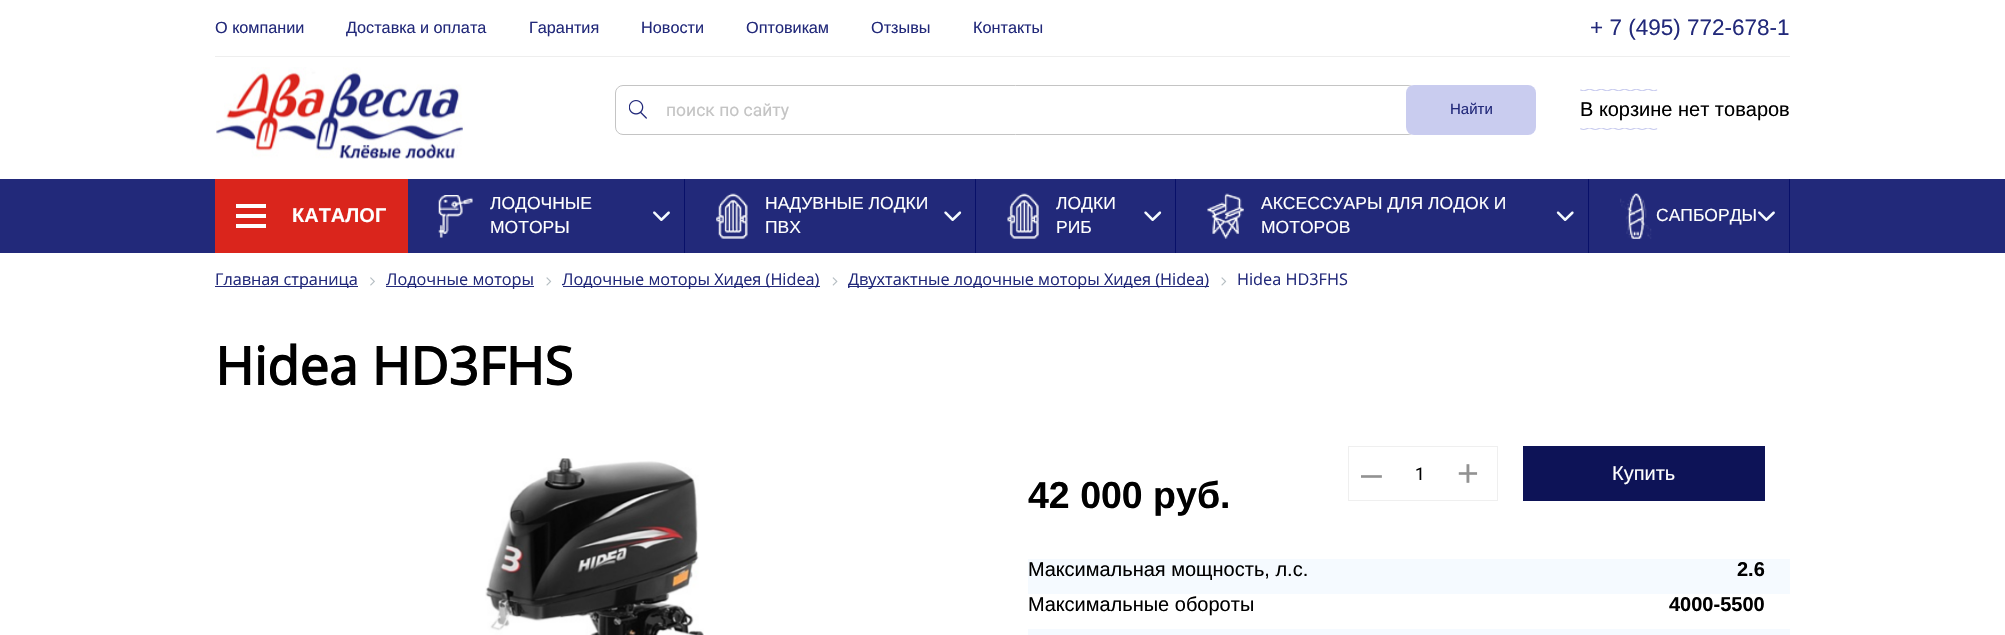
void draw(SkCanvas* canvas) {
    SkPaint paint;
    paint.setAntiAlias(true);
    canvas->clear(0xFFFFFFFF);
    paint.setColor(0xFFEEEEEE);
    canvas->drawRect(SkRect::MakeXYWH(215, 56, 1575, 1), paint);
    SkFont font1(fontMgr->matchFamilyStyle("Liberation Sans", SkFontStyle::Normal()), 16.25f);
    font1.setSubpixel(true);
    paint.setColor(0xFF22297A);
    canvas->drawString("О компании", 215, 33, font1, paint);
    canvas->drawString("Доставка и оплата", 346, 33, font1, paint);
    canvas->drawString("Гарантия", 529, 33, font1, paint);
    canvas->drawString("Новости", 641, 33, font1, paint);
    canvas->drawString("Оптовикам", 746, 33, font1, paint);
    canvas->drawString("Отзывы", 871, 33, font1, paint);
    canvas->drawString("Контакты", 973, 33, font1, paint);
    SkFont font2(fontMgr->matchFamilyStyle("Liberation Sans", SkFontStyle::Normal()), 22.5f);
    font2.setSubpixel(true);
    canvas->drawString("+ 7 (495) 772-678-1", 1590, 35, font2, paint);
    canvas->drawImageRect(SkImages::DeferredFromEncodedData(SkData::MakeFromFileName("img1.png")), SkRect::MakeXYWH(216, 67, 249, 92), SkSamplingOptions());
    canvas->drawImageRect(SkImages::DeferredFromEncodedData(SkData::MakeFromFileName("img2.png")), SkRect::MakeXYWH(629, 100, 18, 19), SkSamplingOptions());
    paint.setStyle(SkPaint::kStroke_Style);
    paint.setStrokeWidth(1);
    paint.setColor(0xFFC4C4C4);
    canvas->drawRoundRect(SkRect::MakeXYWH(615.5f, 85.5f, 800, 49), 7.5f, 7.5f, paint);
    SkFont font3(fontMgr->matchFamilyStyle("Roboto", SkFontStyle::Normal()), 17.5f);
    font3.setSubpixel(true);
    paint.setStyle(SkPaint::kFill_Style);
    canvas->drawString("поиск по сайту", 666, 116, font3, paint);
    paint.setColor(0xFFC9CCEF);
    canvas->drawRoundRect(SkRect::MakeXYWH(1406, 85, 130, 50), 8, 8, paint);
    SkFont font4(fontMgr->matchFamilyStyle("Liberation Sans", SkFontStyle::Normal()), 15);
    font4.setSubpixel(true);
    paint.setColor(0xFF22297A);
    canvas->drawString("Найти", 1450, 114, font4, paint);
    canvas->drawImageRect(SkImages::DeferredFromEncodedData(SkData::MakeFromFileName("img3.png")), SkRect::MakeXYWH(1580, 89, 78, 2), SkSamplingOptions());
    SkFont font5(fontMgr->matchFamilyStyle("Liberation Sans", SkFontStyle::Normal()), 20);
    font5.setSubpixel(true);
    paint.setColor(0xFF000000);
    canvas->drawString("В корзине нет товаров", 1580, 116, font5, paint);
    canvas->drawImageRect(SkImages::DeferredFromEncodedData(SkData::MakeFromFileName("img4.png")), SkRect::MakeXYWH(1580, 128, 78, 2), SkSamplingOptions());
    paint.setColor(0xFF22297A);
    canvas->drawRect(SkRect::MakeXYWH(0, 179, 2005, 74), paint);
    paint.setColor(0xFFDA251C);
    canvas->drawRect(SkRect::MakeXYWH(215, 179, 193, 74), paint);
    paint.setColor(0xFFFFFFFF);
    canvas->drawRect(SkRect::MakeXYWH(236, 204, 30, 4), paint);
    canvas->drawRect(SkRect::MakeXYWH(236, 214, 30, 4), paint);
    canvas->drawRect(SkRect::MakeXYWH(236, 224, 30, 4), paint);
    SkFont font6(fontMgr->matchFamilyStyle("Liberation Sans", SkFontStyle::Bold()), 20);
    font6.setSubpixel(true);
    canvas->drawString("КАТАЛОГ", 292, 222, font6, paint);
    paint.setColor(0xFF081069);
    canvas->drawRect(SkRect::MakeXYWH(684, 179, 1, 74), paint);
    canvas->drawImageRect(SkImages::DeferredFromEncodedData(SkData::MakeFromFileName("img5.png")), SkRect::MakeXYWH(438, 195, 35, 43), SkSamplingOptions());
    SkFont font7(fontMgr->matchFamilyStyle("Liberation Sans", SkFontStyle::Normal()), 17.5f);
    font7.setSubpixel(true);
    paint.setColor(0xFFFFFFFF);
    canvas->drawString("ЛОДОЧНЫЕ", 490, 209, font7, paint);
    canvas->drawImageRect(SkImages::DeferredFromEncodedData(SkData::MakeFromFileName("img6.png")), SkRect::MakeXYWH(653, 211, 17, 10), SkSamplingOptions());
    canvas->drawString("МОТОРЫ", 490, 233, font7, paint);
    paint.setColor(0xFF081069);
    canvas->drawRect(SkRect::MakeXYWH(975, 179, 1, 74), paint);
    canvas->drawImageRect(SkImages::DeferredFromEncodedData(SkData::MakeFromFileName("img7.png")), SkRect::MakeXYWH(716, 193, 32, 46), SkSamplingOptions());
    paint.setColor(0xFFFFFFFF);
    canvas->drawString("НАДУВНЫЕ ЛОДКИ", 765, 209, font7, paint);
    canvas->drawImageRect(SkImages::DeferredFromEncodedData(SkData::MakeFromFileName("img8.png")), SkRect::MakeXYWH(944, 211, 18, 10), SkSamplingOptions());
    canvas->drawString("ПВХ", 765, 233, font7, paint);
    paint.setColor(0xFF081069);
    canvas->drawRect(SkRect::MakeXYWH(1175, 179, 1, 74), paint);
    canvas->drawImageRect(SkImages::DeferredFromEncodedData(SkData::MakeFromFileName("img9.png")), SkRect::MakeXYWH(1007, 193, 32, 46), SkSamplingOptions());
    paint.setColor(0xFFFFFFFF);
    canvas->drawString("ЛОДКИ", 1056, 209, font7, paint);
    canvas->drawImageRect(SkImages::DeferredFromEncodedData(SkData::MakeFromFileName("img8.png")), SkRect::MakeXYWH(1144, 211, 18, 10), SkSamplingOptions());
    canvas->drawString("РИБ", 1056, 233, font7, paint);
    paint.setColor(0xFF081069);
    canvas->drawRect(SkRect::MakeXYWH(1588, 179, 1, 74), paint);
    canvas->drawImageRect(SkImages::DeferredFromEncodedData(SkData::MakeFromFileName("img10.png")), SkRect::MakeXYWH(1207, 193, 37, 46), SkSamplingOptions());
    paint.setColor(0xFFFFFFFF);
    canvas->drawString("АКСЕССУАРЫ ДЛЯ ЛОДОК И", 1261, 209, font7, paint);
    canvas->drawImageRect(SkImages::DeferredFromEncodedData(SkData::MakeFromFileName("img11.png")), SkRect::MakeXYWH(1556, 211, 18, 10), SkSamplingOptions());
    canvas->drawString("МОТОРОВ", 1261, 233, font7, paint);
    paint.setColor(0xFF081069);
    canvas->drawRect(SkRect::MakeXYWH(1789, 179, 1, 74), paint);
    canvas->drawImageRect(SkImages::DeferredFromEncodedData(SkData::MakeFromFileName("img12.png")), SkRect::MakeXYWH(1620, 193, 32, 46), SkSamplingOptions());
    paint.setColor(0xFFFFFFFF);
    canvas->drawString("САПБОРДЫ", 1656, 221, font7, paint);
    canvas->drawImageRect(SkImages::DeferredFromEncodedData(SkData::MakeFromFileName("img6.png")), SkRect::MakeXYWH(1758, 211, 17, 10), SkSamplingOptions());
    paint.setColor(0xFF22297A);
    canvas->drawRect(SkRect::MakeXYWH(215, 286, 143, 1), paint);
    SkFont font8(fontMgr->matchFamilyStyle("Open Sans", SkFontStyle::Normal()), 16.25f);
    font8.setSubpixel(true);
    canvas->drawString("Главная страница", 215, 285, font8, paint);
    canvas->drawImageRect(SkImages::DeferredFromEncodedData(SkData::MakeFromFileName("img13.png")), SkRect::MakeXYWH(370, 277, 5, 9), SkSamplingOptions());
    canvas->drawRect(SkRect::MakeXYWH(386, 286, 148, 1), paint);
    canvas->drawString("Лодочные моторы", 386, 285, font8, paint);
    canvas->drawImageRect(SkImages::DeferredFromEncodedData(SkData::MakeFromFileName("img14.png")), SkRect::MakeXYWH(546, 277, 6, 9), SkSamplingOptions());
    canvas->drawRect(SkRect::MakeXYWH(563, 286, 257, 1), paint);
    canvas->drawString("Лодочные моторы Хидея (Hidea)", 562, 285, font8, paint);
    canvas->drawImageRect(SkImages::DeferredFromEncodedData(SkData::MakeFromFileName("img15.png")), SkRect::MakeXYWH(832, 277, 6, 9), SkSamplingOptions());
    canvas->drawRect(SkRect::MakeXYWH(848, 286, 361, 1), paint);
    canvas->drawString("Двухтактные лодочные моторы Хидея (Hidea)", 848, 285, font8, paint);
    canvas->drawImageRect(SkImages::DeferredFromEncodedData(SkData::MakeFromFileName("img14.png")), SkRect::MakeXYWH(1221, 277, 6, 9), SkSamplingOptions());
    canvas->drawString("Hidea HD3FHS", 1237, 285, font8, paint);
    SkFont font9(fontMgr->matchFamilyStyle("Open Sans", SkFontStyle::Bold()), 52.5f);
    font9.setSubpixel(true);
    paint.setColor(0xFF000000);
    canvas->drawString("Hidea HD3FHS", 215, 385, font9, paint);
    canvas->drawImageRect(SkImages::DeferredFromEncodedData(SkData::MakeFromFileName("img16.png")), SkRect::MakeXYWH(485, 458, 219, 177), SkSamplingOptions());
    paint.setStyle(SkPaint::kStroke_Style);
    paint.setColor(0xFFEFEFEF);
    canvas->drawRect(SkRect::MakeXYWH(1348.5f, 446.5f, 149, 54), paint);
    SkFont font10(fontMgr->matchFamilyStyle("Liberation Sans", SkFontStyle::Normal()), 37.5f);
    font10.setSubpixel(true);
    paint.setStyle(SkPaint::kFill_Style);
    paint.setColor(0xFF929292);
    canvas->drawString("–", 1361, 486, font10, paint);
    paint.setColor(0xFF000000);
    canvas->drawString("1", 1415, 480, font3, paint);
    paint.setColor(0xFF929292);
    canvas->drawString("+", 1457, 486, font10, paint);
    paint.setColor(0xFF0D1357);
    canvas->drawRect(SkRect::MakeXYWH(1523, 446, 242, 55), paint);
    paint.setColor(0xFFFFFFFF);
    canvas->drawString("Купить", 1612, 480, font5, paint);
    SkFont font11(fontMgr->matchFamilyStyle("Liberation Sans", SkFontStyle::Bold()), 37.5f);
    font11.setSubpixel(true);
    paint.setColor(0xFF000000);
    canvas->drawString("42 000 руб.", 1028, 508, font11, paint);
    paint.setColor(0xFFF5FAFF);
    canvas->drawRect(SkRect::MakeXYWH(1028, 559, 762, 35), paint);
    paint.setColor(0xFF000000);
    canvas->drawString("Максимальная мощность, л.с.", 1028, 576, font5, paint);
    canvas->drawString("2.6", 1737, 576, font6, paint);
    canvas->drawString("Максимальные обороты", 1028, 611, font5, paint);
    canvas->drawString("4000-5500", 1669, 611, font6, paint);
    paint.setColor(0xFFF5FAFF);
    canvas->drawRect(SkRect::MakeXYWH(1028, 629, 762, 6), paint);
}
